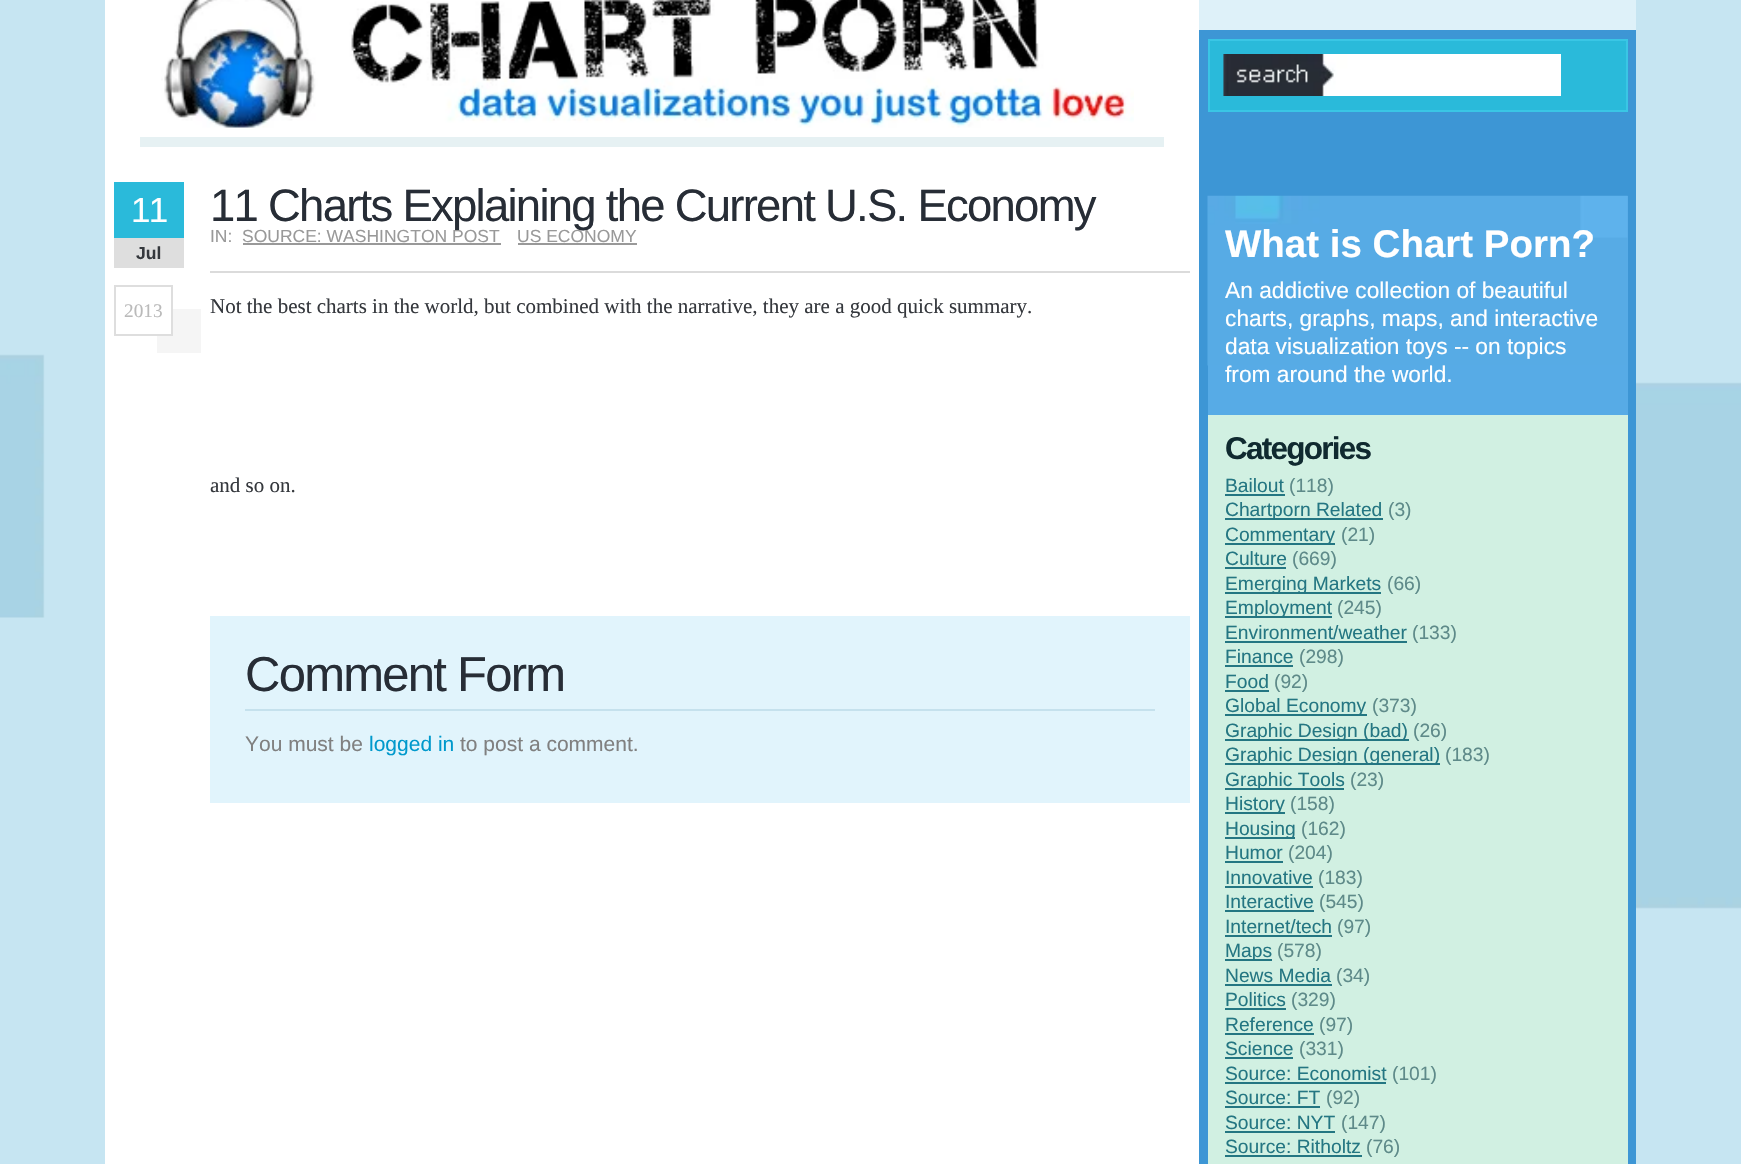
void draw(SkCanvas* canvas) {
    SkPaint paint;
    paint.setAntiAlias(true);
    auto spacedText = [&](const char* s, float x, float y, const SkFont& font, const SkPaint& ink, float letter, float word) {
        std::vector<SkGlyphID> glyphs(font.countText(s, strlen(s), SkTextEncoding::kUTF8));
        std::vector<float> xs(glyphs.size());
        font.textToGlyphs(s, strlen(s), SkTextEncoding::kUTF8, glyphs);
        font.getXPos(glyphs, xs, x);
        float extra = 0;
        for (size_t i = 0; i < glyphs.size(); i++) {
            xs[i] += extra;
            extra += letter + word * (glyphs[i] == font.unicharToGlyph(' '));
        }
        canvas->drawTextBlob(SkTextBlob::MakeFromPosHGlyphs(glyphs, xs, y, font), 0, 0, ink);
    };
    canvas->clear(0xFFC6E5F2);
    canvas->drawImageRect(SkImages::DeferredFromEncodedData(SkData::MakeFromFileName("img1.png")), SkRect::MakeXYWH(0, 354, 1741, 555), SkSamplingOptions());
    paint.setColor(0xFFFFFFFF);
    canvas->drawRect(SkRect::MakeXYWH(105, 0, 1094, 1164), paint);
    paint.setColor(0xFFE6F1F3);
    canvas->drawRect(SkRect::MakeXYWH(140, 137, 1024, 10), paint);
    canvas->drawImageRect(SkImages::DeferredFromEncodedData(SkData::MakeFromFileName("img2.png")), SkRect::MakeXYWH(161, 0, 973, 128), SkSamplingOptions());
    paint.setColor(0xFFF5F5F5);
    canvas->drawRect(SkRect::MakeXYWH(157, 309, 44, 44), paint);
    paint.setColor(0xFF2ABADA);
    canvas->drawRect(SkRect::MakeXYWH(114, 182, 70, 56), paint);
    SkFont font1(fontMgr->matchFamilyStyle("Liberation Sans", SkFontStyle::Normal()), 35);
    font1.setSubpixel(true);
    paint.setColor(0xFFFFFFFF);
    spacedText("11", 131, 222, font1, paint, -1.75f, 0);
    paint.setColor(0xFFDEDEDE);
    canvas->drawRect(SkRect::MakeXYWH(114, 238, 70, 30), paint);
    SkFont font2(fontMgr->matchFamilyStyle("Liberation Sans", SkFontStyle::Bold()), 17.5f);
    font2.setSubpixel(true);
    paint.setColor(0xFF35383D);
    canvas->drawString("Jul", 136, 259, font2, paint);
    paint.setColor(0xFFFFFFFF);
    canvas->drawRect(SkRect::MakeXYWH(157, 309, 14, 25), paint);
    paint.setStyle(SkPaint::kStroke_Style);
    paint.setStrokeWidth(2);
    paint.setColor(0xFFDEDEDE);
    canvas->drawRect(SkRect::MakeXYWH(115, 286, 57, 49), paint);
    SkFont font3(fontMgr->matchFamilyStyle("Liberation Serif", SkFontStyle::Normal()), 19.25f);
    font3.setSubpixel(true);
    paint.setStyle(SkPaint::kFill_Style);
    paint.setColor(0xFFBABABA);
    canvas->drawString("2013", 124, 317, font3, paint);
    SkFont font4(fontMgr->matchFamilyStyle("Liberation Sans", SkFontStyle::Normal()), 45.5f);
    font4.setSubpixel(true);
    paint.setColor(0xFF272D36);
    spacedText("11 Charts Explaining the Current U.S. Economy", 210, 221, font4, paint, -1.75f, 0);
    SkFont font5(fontMgr->matchFamilyStyle("Liberation Sans", SkFontStyle::Normal()), 17.5f);
    font5.setSubpixel(true);
    paint.setColor(0xFF999999);
    canvas->drawString("IN:", 210, 242, font5, paint);
    canvas->drawString("SOURCE: WASHINGTON POST", 242, 242, font5, paint);
    canvas->drawRect(SkRect::MakeXYWH(243, 243, 258, 2), paint);
    canvas->drawString("US ECONOMY", 517, 242, font5, paint);
    canvas->drawRect(SkRect::MakeXYWH(518, 243, 119, 2), paint);
    paint.setColor(0xFFDBDBDB);
    canvas->drawRect(SkRect::MakeXYWH(210, 271, 980, 2), paint);
    SkFont font6(fontMgr->matchFamilyStyle("Liberation Serif", SkFontStyle::Normal()), 21);
    font6.setSubpixel(true);
    paint.setColor(0xFF35383D);
    canvas->drawString("Not the best charts in the world, but combined with the narrative, they are a good quick summary.", 210, 313, font6, paint);
    canvas->drawString("and so on.", 210, 492, font6, paint);
    paint.setColor(0xFFE1F4FC);
    canvas->drawRect(SkRect::MakeXYWH(210, 616, 980, 187), paint);
    paint.setColor(0xFFC5E1ED);
    canvas->drawRect(SkRect::MakeXYWH(245, 709, 910, 2), paint);
    SkFont font7(fontMgr->matchFamilyStyle("Liberation Sans", SkFontStyle::Normal()), 49);
    font7.setSubpixel(true);
    paint.setColor(0xFF272D36);
    spacedText("Comment Form", 245, 691, font7, paint, -1.75f, 0);
    SkFont font8(fontMgr->matchFamilyStyle("Liberation Sans", SkFontStyle::Normal()), 21);
    font8.setSubpixel(true);
    paint.setColor(0xFF808080);
    canvas->drawString("You must be", 245, 751, font8, paint);
    paint.setColor(0xFF0099CC);
    canvas->drawString("logged in", 369, 751, font8, paint);
    paint.setColor(0xFF808080);
    canvas->drawString("to post a comment.", 460, 751, font8, paint);
    paint.setColor(0xFFDEF1F9);
    canvas->drawRect(SkRect::MakeXYWH(1199, 0, 437, 30), paint);
    paint.setColor(0xFF3D96D5);
    canvas->drawRect(SkRect::MakeXYWH(1199, 30, 437, 1134), paint);
    paint.setColor(0xFF2ABADA);
    canvas->drawRect(SkRect::MakeXYWH(1209, 40, 418, 71), paint);
    paint.setStyle(SkPaint::kStroke_Style);
    paint.setColor(0xFF3AC6E5);
    canvas->drawRect(SkRect::MakeXYWH(1209, 40, 418, 71), paint);
    canvas->drawImageRect(SkImages::DeferredFromEncodedData(SkData::MakeFromFileName("img3.png")), SkRect::MakeXYWH(1223, 54, 338, 42), SkSamplingOptions());
    paint.setStyle(SkPaint::kFill_Style);
    paint.setColor(0xFF57ABE6);
    canvas->drawRect(SkRect::MakeXYWH(1208, 196, 420, 219), paint);
    canvas->drawImageRect(SkImages::DeferredFromEncodedData(SkData::MakeFromFileName("img4.png")), SkRect::MakeXYWH(1207, 195, 421, 171), SkSamplingOptions());
    SkFont font9(fontMgr->matchFamilyStyle("Liberation Sans", SkFontStyle::Bold()), 38.5f);
    font9.setSubpixel(true);
    paint.setColor(0xFFFFFFFF);
    canvas->drawString("What is Chart Porn?", 1225, 257, font9, paint);
    SkFont font10(fontMgr->matchFamilyStyle("Liberation Sans", SkFontStyle::Normal()), 22.75f);
    font10.setSubpixel(true);
    canvas->drawString("An addictive collection of beautiful", 1225, 298, font10, paint);
    canvas->drawString("charts, graphs, maps, and interactive", 1225, 326, font10, paint);
    canvas->drawString("data visualization toys -- on topics", 1225, 354, font10, paint);
    canvas->drawString("from around the world.", 1225, 382, font10, paint);
    paint.setColor(0xFFD1F0E2);
    canvas->drawRect(SkRect::MakeXYWH(1208, 415, 420, 749), paint);
    SkFont font11(fontMgr->matchFamilyStyle("Liberation Sans", SkFontStyle::Bold()), 31.5f);
    font11.setSubpixel(true);
    paint.setColor(0xFF102A30);
    spacedText("Categories", 1225, 459, font11, paint, -1.75f, 0);
    SkFont font12(fontMgr->matchFamilyStyle("Liberation Sans", SkFontStyle::Normal()), 19.25f);
    font12.setSubpixel(true);
    paint.setColor(0xFF247682);
    canvas->drawString("Bailout", 1225, 492, font12, paint);
    canvas->drawRect(SkRect::MakeXYWH(1225, 494, 60, 2), paint);
    paint.setColor(0xFF5E8A89);
    canvas->drawString("(118)", 1289, 492, font12, paint);
    paint.setColor(0xFF247682);
    canvas->drawRect(SkRect::MakeXYWH(1225, 518, 158, 2), paint);
    canvas->drawString("Chartporn Related", 1225, 516, font12, paint);
    paint.setColor(0xFF5E8A89);
    canvas->drawString("(3)", 1388, 516, font12, paint);
    paint.setColor(0xFF247682);
    canvas->drawRect(SkRect::MakeXYWH(1225, 543, 110, 2), paint);
    canvas->drawString("Commentary", 1225, 541, font12, paint);
    paint.setColor(0xFF5E8A89);
    canvas->drawString("(21)", 1341, 541, font12, paint);
    paint.setColor(0xFF247682);
    canvas->drawString("Culture", 1225, 565, font12, paint);
    canvas->drawRect(SkRect::MakeXYWH(1225, 567, 61, 2), paint);
    paint.setColor(0xFF5E8A89);
    canvas->drawString("(669)", 1292, 565, font12, paint);
    paint.setColor(0xFF247682);
    canvas->drawRect(SkRect::MakeXYWH(1225, 592, 156, 2), paint);
    canvas->drawString("Emerging Markets", 1225, 590, font12, paint);
    paint.setColor(0xFF5E8A89);
    canvas->drawString("(66)", 1387, 590, font12, paint);
    paint.setColor(0xFF247682);
    canvas->drawRect(SkRect::MakeXYWH(1225, 616, 107, 2), paint);
    canvas->drawString("Employment", 1225, 614, font12, paint);
    paint.setColor(0xFF5E8A89);
    canvas->drawString("(245)", 1337, 614, font12, paint);
    paint.setColor(0xFF247682);
    canvas->drawString("Environment/weather", 1225, 639, font12, paint);
    canvas->drawRect(SkRect::MakeXYWH(1225, 641, 182, 2), paint);
    paint.setColor(0xFF5E8A89);
    canvas->drawString("(133)", 1412, 639, font12, paint);
    paint.setColor(0xFF247682);
    canvas->drawString("Finance", 1225, 663, font12, paint);
    canvas->drawRect(SkRect::MakeXYWH(1225, 665, 68, 2), paint);
    paint.setColor(0xFF5E8A89);
    canvas->drawString("(298)", 1299, 663, font12, paint);
    paint.setColor(0xFF247682);
    canvas->drawString("Food", 1225, 688, font12, paint);
    canvas->drawRect(SkRect::MakeXYWH(1225, 690, 44, 2), paint);
    paint.setColor(0xFF5E8A89);
    canvas->drawString("(92)", 1274, 688, font12, paint);
    paint.setColor(0xFF247682);
    canvas->drawRect(SkRect::MakeXYWH(1225, 714, 142, 2), paint);
    canvas->drawString("Global Economy", 1225, 712, font12, paint);
    paint.setColor(0xFF5E8A89);
    canvas->drawString("(373)", 1372, 712, font12, paint);
    paint.setColor(0xFF247682);
    canvas->drawRect(SkRect::MakeXYWH(1225, 739, 184, 2), paint);
    canvas->drawString("Graphic Design (bad)", 1225, 737, font12, paint);
    paint.setColor(0xFF5E8A89);
    canvas->drawString("(26)", 1413, 737, font12, paint);
    paint.setColor(0xFF247682);
    canvas->drawRect(SkRect::MakeXYWH(1225, 763, 215, 2), paint);
    canvas->drawString("Graphic Design (general)", 1225, 761, font12, paint);
    paint.setColor(0xFF5E8A89);
    canvas->drawString("(183)", 1445, 761, font12, paint);
    paint.setColor(0xFF247682);
    canvas->drawRect(SkRect::MakeXYWH(1225, 788, 119, 2), paint);
    canvas->drawString("Graphic Tools", 1225, 786, font12, paint);
    paint.setColor(0xFF5E8A89);
    canvas->drawString("(23)", 1350, 786, font12, paint);
    paint.setColor(0xFF247682);
    canvas->drawRect(SkRect::MakeXYWH(1225, 812, 60, 2), paint);
    canvas->drawString("History", 1225, 810, font12, paint);
    paint.setColor(0xFF5E8A89);
    canvas->drawString("(158)", 1290, 810, font12, paint);
    paint.setColor(0xFF247682);
    canvas->drawRect(SkRect::MakeXYWH(1225, 837, 70, 2), paint);
    canvas->drawString("Housing", 1225, 835, font12, paint);
    paint.setColor(0xFF5E8A89);
    canvas->drawString("(162)", 1301, 835, font12, paint);
    paint.setColor(0xFF247682);
    canvas->drawString("Humor", 1225, 859, font12, paint);
    canvas->drawRect(SkRect::MakeXYWH(1225, 861, 58, 2), paint);
    paint.setColor(0xFF5E8A89);
    canvas->drawString("(204)", 1288, 859, font12, paint);
    paint.setColor(0xFF247682);
    canvas->drawString("Innovative", 1225, 884, font12, paint);
    canvas->drawRect(SkRect::MakeXYWH(1225, 886, 88, 2), paint);
    paint.setColor(0xFF5E8A89);
    canvas->drawString("(183)", 1318, 884, font12, paint);
    paint.setColor(0xFF247682);
    canvas->drawString("Interactive", 1225, 908, font12, paint);
    canvas->drawRect(SkRect::MakeXYWH(1225, 910, 89, 2), paint);
    paint.setColor(0xFF5E8A89);
    canvas->drawString("(545)", 1319, 908, font12, paint);
    paint.setColor(0xFF247682);
    canvas->drawString("Internet/tech", 1225, 933, font12, paint);
    canvas->drawRect(SkRect::MakeXYWH(1225, 935, 107, 2), paint);
    paint.setColor(0xFF5E8A89);
    canvas->drawString("(97)", 1337, 933, font12, paint);
    paint.setColor(0xFF247682);
    canvas->drawRect(SkRect::MakeXYWH(1225, 959, 47, 2), paint);
    canvas->drawString("Maps", 1225, 957, font12, paint);
    paint.setColor(0xFF5E8A89);
    canvas->drawString("(578)", 1277, 957, font12, paint);
    paint.setColor(0xFF247682);
    canvas->drawString("News Media", 1225, 982, font12, paint);
    canvas->drawRect(SkRect::MakeXYWH(1225, 984, 107, 2), paint);
    paint.setColor(0xFF5E8A89);
    canvas->drawString("(34)", 1336, 982, font12, paint);
    paint.setColor(0xFF247682);
    canvas->drawString("Politics", 1225, 1006, font12, paint);
    canvas->drawRect(SkRect::MakeXYWH(1225, 1008, 61, 2), paint);
    paint.setColor(0xFF5E8A89);
    canvas->drawString("(329)", 1291, 1006, font12, paint);
    paint.setColor(0xFF247682);
    canvas->drawString("Reference", 1225, 1031, font12, paint);
    canvas->drawRect(SkRect::MakeXYWH(1225, 1033, 89, 2), paint);
    paint.setColor(0xFF5E8A89);
    canvas->drawString("(97)", 1319, 1031, font12, paint);
    paint.setColor(0xFF247682);
    canvas->drawString("Science", 1225, 1055, font12, paint);
    canvas->drawRect(SkRect::MakeXYWH(1225, 1057, 68, 2), paint);
    paint.setColor(0xFF5E8A89);
    canvas->drawString("(331)", 1299, 1055, font12, paint);
    paint.setColor(0xFF247682);
    canvas->drawString("Source: Economist", 1225, 1080, font12, paint);
    canvas->drawRect(SkRect::MakeXYWH(1225, 1082, 161, 2), paint);
    paint.setColor(0xFF5E8A89);
    canvas->drawString("(101)", 1392, 1080, font12, paint);
    paint.setColor(0xFF247682);
    canvas->drawString("Source: FT", 1225, 1104, font12, paint);
    canvas->drawRect(SkRect::MakeXYWH(1225, 1106, 95, 2), paint);
    paint.setColor(0xFF5E8A89);
    canvas->drawString("(92)", 1326, 1104, font12, paint);
    paint.setColor(0xFF247682);
    canvas->drawString("Source: NYT", 1225, 1129, font12, paint);
    canvas->drawRect(SkRect::MakeXYWH(1225, 1131, 110, 2), paint);
    paint.setColor(0xFF5E8A89);
    canvas->drawString("(147)", 1341, 1129, font12, paint);
    paint.setColor(0xFF247682);
    canvas->drawString("Source: Ritholtz", 1225, 1153, font12, paint);
    canvas->drawRect(SkRect::MakeXYWH(1225, 1155, 137, 2), paint);
    paint.setColor(0xFF5E8A89);
    canvas->drawString("(76)", 1366, 1153, font12, paint);
}
